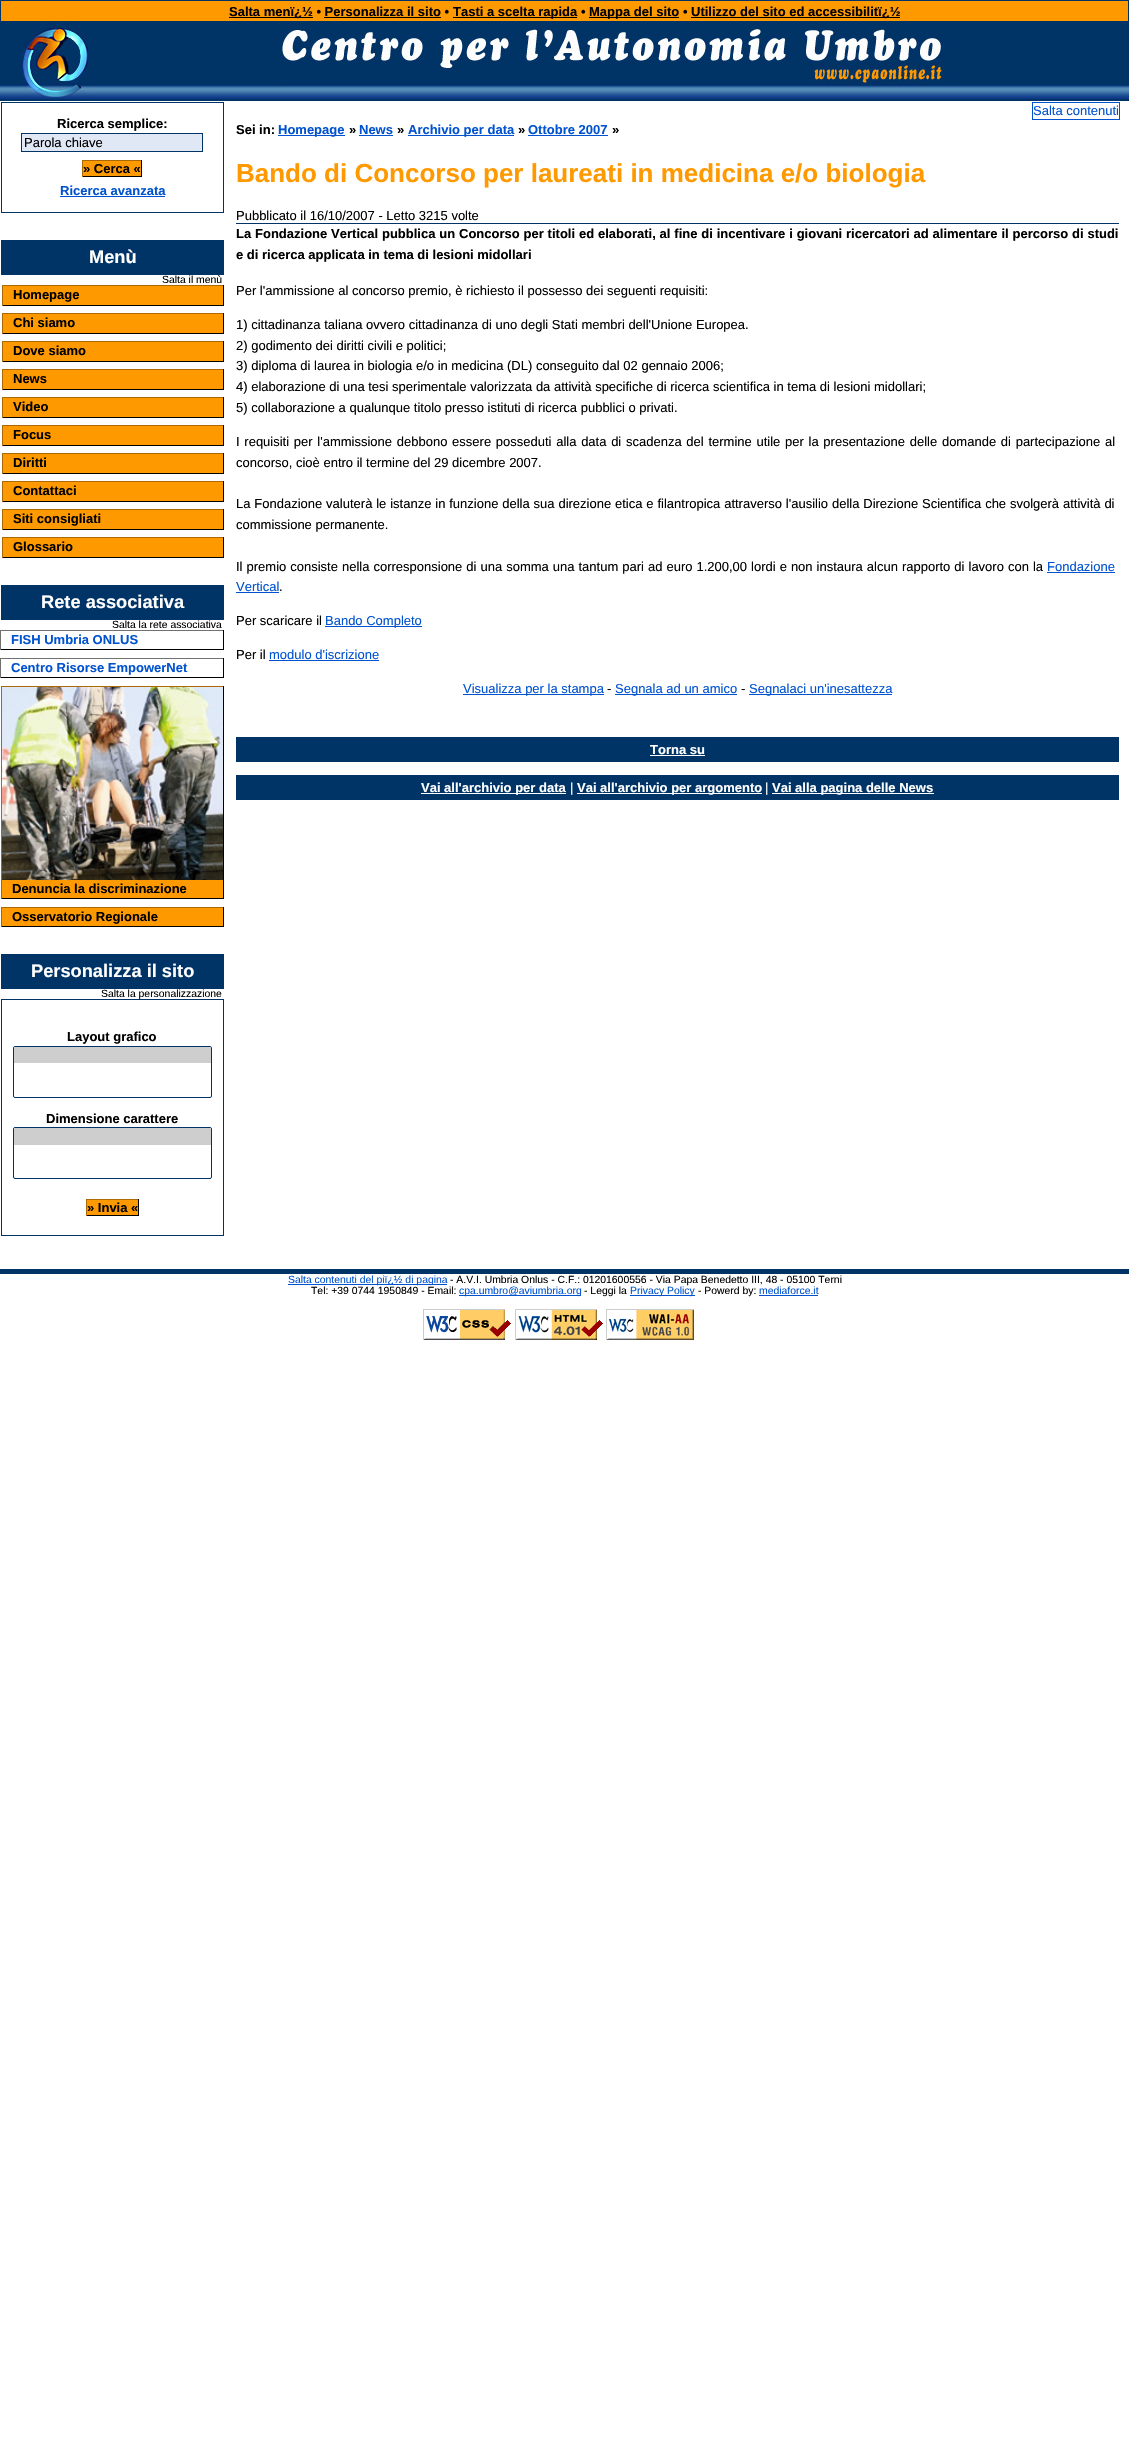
void draw(SkCanvas* canvas) {
    SkPaint paint;
    paint.setAntiAlias(true);
    auto spacedText = [&](const char* s, float x, float y, const SkFont& font, const SkPaint& ink, float letter, float word) {
        std::vector<SkGlyphID> glyphs(font.countText(s, strlen(s), SkTextEncoding::kUTF8));
        std::vector<float> xs(glyphs.size());
        font.textToGlyphs(s, strlen(s), SkTextEncoding::kUTF8, glyphs);
        font.getXPos(glyphs, xs, x);
        float extra = 0;
        for (size_t i = 0; i < glyphs.size(); i++) {
            xs[i] += extra;
            extra += letter + word * (glyphs[i] == font.unicharToGlyph(' '));
        }
        canvas->drawTextBlob(SkTextBlob::MakeFromPosHGlyphs(glyphs, xs, y, font), 0, 0, ink);
    };
    canvas->clear(0xFFFFFFFF);
    paint.setColor(0xFF003366);
    canvas->drawRect(SkRect::MakeXYWH(0, 99, 1129, 2), paint);
    paint.setColor(0xFFFF9900);
    canvas->drawRect(SkRect::MakeXYWH(0.5f, 0.5f, 1128, 21), paint);
    paint.setStyle(SkPaint::kStroke_Style);
    paint.setStrokeWidth(1);
    paint.setColor(0xFF003366);
    canvas->drawRect(SkRect::MakeXYWH(0.5f, 0.5f, 1128, 21), paint);
    paint.setStyle(SkPaint::kFill_Style);
    paint.setColor(0xFF000000);
    canvas->drawRect(SkRect::MakeXYWH(229, 17, 84, 1), paint);
    SkFont font1(fontMgr->matchFamilyStyle("Liberation Sans", SkFontStyle::Bold()), 13);
    font1.setSubpixel(true);
    canvas->drawString("Salta menï¿½ • Personalizza il sito •", 229, 16, font1, paint);
    canvas->drawRect(SkRect::MakeXYWH(453, 17, 124, 1), paint);
    canvas->drawString("Tasti a scelta rapida •", 453, 16, font1, paint);
    canvas->drawRect(SkRect::MakeXYWH(589, 17, 90, 1), paint);
    canvas->drawString("Mappa del sito •", 589, 16, font1, paint);
    canvas->drawRect(SkRect::MakeXYWH(691, 17, 209, 1), paint);
    canvas->drawString("Utilizzo del sito ed accessibilitï¿½", 691, 16, font1, paint);
    canvas->drawRect(SkRect::MakeXYWH(324, 17, 117, 1), paint);
    canvas->drawImageRect(SkImages::DeferredFromEncodedData(SkData::MakeFromFileName("img1.png")), SkRect::MakeXYWH(0, 97, 1129, 2), SkSamplingOptions());
    paint.setColor(0xFF003366);
    canvas->drawRect(SkRect::MakeXYWH(0, 22, 1129, 63), paint);
    canvas->drawImageRect(SkImages::DeferredFromEncodedData(SkData::MakeFromFileName("img2.png")), SkRect::MakeXYWH(0, 85, 113, 12), SkSamplingOptions());
    canvas->drawImageRect(SkImages::DeferredFromEncodedData(SkData::MakeFromFileName("img3.png")), SkRect::MakeXYWH(22, 22, 69, 75), SkSamplingOptions());
    canvas->drawImageRect(SkImages::DeferredFromEncodedData(SkData::MakeFromFileName("img4.png")), SkRect::MakeXYWH(113, 85, 1016, 12), SkSamplingOptions());
    canvas->drawImageRect(SkImages::DeferredFromEncodedData(SkData::MakeFromFileName("img5.png")), SkRect::MakeXYWH(281, 22, 664, 64), SkSamplingOptions());
    paint.setStyle(SkPaint::kStroke_Style);
    canvas->drawRect(SkRect::MakeXYWH(1.5f, 102.5f, 222, 110), paint);
    paint.setStyle(SkPaint::kFill_Style);
    paint.setColor(0xFF000000);
    canvas->drawString("Ricerca semplice:", 57, 128, font1, paint);
    paint.setColor(0xFFE0E7F5);
    canvas->drawRect(SkRect::MakeXYWH(21.5f, 133.5f, 181, 18), paint);
    paint.setStyle(SkPaint::kStroke_Style);
    paint.setColor(0xFF003366);
    canvas->drawRect(SkRect::MakeXYWH(21.5f, 133.5f, 181, 18), paint);
    SkFont font2(fontMgr->matchFamilyStyle("Liberation Sans", SkFontStyle::Normal()), 13);
    font2.setSubpixel(true);
    paint.setStyle(SkPaint::kFill_Style);
    paint.setColor(0xFF000000);
    canvas->drawString("Parola chiave", 24, 147, font2, paint);
    paint.setColor(0xFFFF9900);
    canvas->drawRect(SkRect::MakeXYWH(83, 161, 58, 15), paint);
    paint.setColor(0xFFAB6906);
    canvas->drawRect(SkRect::MakeXYWH(82, 160, 60, 1), paint);
    paint.setColor(0xFF000000);
    canvas->drawRect(SkRect::MakeXYWH(141, 160, 1, 17), paint);
    canvas->drawRect(SkRect::MakeXYWH(82, 176, 60, 1), paint);
    paint.setColor(0xFFAB6906);
    canvas->drawRect(SkRect::MakeXYWH(82, 160, 1, 17), paint);
    paint.setColor(0xFF000000);
    canvas->drawString("» Cerca «", 83, 173, font1, paint);
    paint.setColor(0xFF0052CF);
    canvas->drawString("Ricerca avanzata", 60, 195, font1, paint);
    canvas->drawRect(SkRect::MakeXYWH(60, 196, 105, 1), paint);
    paint.setColor(0xFF003366);
    canvas->drawRect(SkRect::MakeXYWH(1, 240, 223, 35), paint);
    SkFont font3(fontMgr->matchFamilyStyle("Liberation Sans", SkFontStyle::Bold()), 18.25f);
    font3.setSubpixel(true);
    paint.setColor(0xFFFFFFFF);
    canvas->drawString("Menù", 89, 263, font3, paint);
    SkFont font4(fontMgr->matchFamilyStyle("Liberation Sans", SkFontStyle::Normal()), 10.4f);
    font4.setSubpixel(true);
    paint.setColor(0xFF000000);
    canvas->drawString("Salta il menù", 162, 283, font4, paint);
    paint.setColor(0xFFFF9900);
    canvas->drawRect(SkRect::MakeXYWH(3, 286, 220, 19), paint);
    paint.setColor(0xFFAB6906);
    canvas->drawRect(SkRect::MakeXYWH(2, 285, 222, 1), paint);
    paint.setColor(0xFF000000);
    canvas->drawRect(SkRect::MakeXYWH(223, 285, 1, 21), paint);
    canvas->drawRect(SkRect::MakeXYWH(2, 305, 222, 1), paint);
    paint.setColor(0xFFAB6906);
    canvas->drawRect(SkRect::MakeXYWH(2, 285, 1, 21), paint);
    paint.setColor(0xFF000000);
    canvas->drawString("Homepage", 13, 299, font1, paint);
    paint.setColor(0xFFFF9900);
    canvas->drawRect(SkRect::MakeXYWH(3, 314, 220, 19), paint);
    paint.setColor(0xFFAB6906);
    canvas->drawRect(SkRect::MakeXYWH(2, 313, 222, 1), paint);
    paint.setColor(0xFF000000);
    canvas->drawRect(SkRect::MakeXYWH(223, 313, 1, 21), paint);
    canvas->drawRect(SkRect::MakeXYWH(2, 333, 222, 1), paint);
    paint.setColor(0xFFAB6906);
    canvas->drawRect(SkRect::MakeXYWH(2, 313, 1, 21), paint);
    paint.setColor(0xFF000000);
    canvas->drawString("Chi siamo", 13, 327, font1, paint);
    paint.setColor(0xFFFF9900);
    canvas->drawRect(SkRect::MakeXYWH(3, 342, 220, 19), paint);
    paint.setColor(0xFFAB6906);
    canvas->drawRect(SkRect::MakeXYWH(2, 341, 222, 1), paint);
    paint.setColor(0xFF000000);
    canvas->drawRect(SkRect::MakeXYWH(223, 341, 1, 21), paint);
    canvas->drawRect(SkRect::MakeXYWH(2, 361, 222, 1), paint);
    paint.setColor(0xFFAB6906);
    canvas->drawRect(SkRect::MakeXYWH(2, 341, 1, 21), paint);
    paint.setColor(0xFF000000);
    canvas->drawString("Dove siamo", 13, 355, font1, paint);
    paint.setColor(0xFFFF9900);
    canvas->drawRect(SkRect::MakeXYWH(3, 370, 220, 19), paint);
    paint.setColor(0xFFAB6906);
    canvas->drawRect(SkRect::MakeXYWH(2, 369, 222, 1), paint);
    paint.setColor(0xFF000000);
    canvas->drawRect(SkRect::MakeXYWH(223, 369, 1, 21), paint);
    canvas->drawRect(SkRect::MakeXYWH(2, 389, 222, 1), paint);
    paint.setColor(0xFFAB6906);
    canvas->drawRect(SkRect::MakeXYWH(2, 369, 1, 21), paint);
    paint.setColor(0xFF000000);
    canvas->drawString("News", 13, 383, font1, paint);
    paint.setColor(0xFFFF9900);
    canvas->drawRect(SkRect::MakeXYWH(3, 398, 220, 19), paint);
    paint.setColor(0xFFAB6906);
    canvas->drawRect(SkRect::MakeXYWH(2, 397, 222, 1), paint);
    paint.setColor(0xFF000000);
    canvas->drawRect(SkRect::MakeXYWH(223, 397, 1, 21), paint);
    canvas->drawRect(SkRect::MakeXYWH(2, 417, 222, 1), paint);
    paint.setColor(0xFFAB6906);
    canvas->drawRect(SkRect::MakeXYWH(2, 397, 1, 21), paint);
    paint.setColor(0xFF000000);
    canvas->drawString("Video", 13, 411, font1, paint);
    paint.setColor(0xFFFF9900);
    canvas->drawRect(SkRect::MakeXYWH(3, 426, 220, 19), paint);
    paint.setColor(0xFFAB6906);
    canvas->drawRect(SkRect::MakeXYWH(2, 425, 222, 1), paint);
    paint.setColor(0xFF000000);
    canvas->drawRect(SkRect::MakeXYWH(223, 425, 1, 21), paint);
    canvas->drawRect(SkRect::MakeXYWH(2, 445, 222, 1), paint);
    paint.setColor(0xFFAB6906);
    canvas->drawRect(SkRect::MakeXYWH(2, 425, 1, 21), paint);
    paint.setColor(0xFF000000);
    canvas->drawString("Focus", 13, 439, font1, paint);
    paint.setColor(0xFFFF9900);
    canvas->drawRect(SkRect::MakeXYWH(3, 454, 220, 19), paint);
    paint.setColor(0xFFAB6906);
    canvas->drawRect(SkRect::MakeXYWH(2, 453, 222, 1), paint);
    paint.setColor(0xFF000000);
    canvas->drawRect(SkRect::MakeXYWH(223, 453, 1, 21), paint);
    canvas->drawRect(SkRect::MakeXYWH(2, 473, 222, 1), paint);
    paint.setColor(0xFFAB6906);
    canvas->drawRect(SkRect::MakeXYWH(2, 453, 1, 21), paint);
    paint.setColor(0xFF000000);
    canvas->drawString("Diritti", 13, 467, font1, paint);
    paint.setColor(0xFFFF9900);
    canvas->drawRect(SkRect::MakeXYWH(3, 482, 220, 19), paint);
    paint.setColor(0xFFAB6906);
    canvas->drawRect(SkRect::MakeXYWH(2, 481, 222, 1), paint);
    paint.setColor(0xFF000000);
    canvas->drawRect(SkRect::MakeXYWH(223, 481, 1, 21), paint);
    canvas->drawRect(SkRect::MakeXYWH(2, 501, 222, 1), paint);
    paint.setColor(0xFFAB6906);
    canvas->drawRect(SkRect::MakeXYWH(2, 481, 1, 21), paint);
    paint.setColor(0xFF000000);
    canvas->drawString("Contattaci", 13, 495, font1, paint);
    paint.setColor(0xFFFF9900);
    canvas->drawRect(SkRect::MakeXYWH(3, 510, 220, 19), paint);
    paint.setColor(0xFFAB6906);
    canvas->drawRect(SkRect::MakeXYWH(2, 509, 222, 1), paint);
    paint.setColor(0xFF000000);
    canvas->drawRect(SkRect::MakeXYWH(223, 509, 1, 21), paint);
    canvas->drawRect(SkRect::MakeXYWH(2, 529, 222, 1), paint);
    paint.setColor(0xFFAB6906);
    canvas->drawRect(SkRect::MakeXYWH(2, 509, 1, 21), paint);
    paint.setColor(0xFF000000);
    canvas->drawString("Siti consigliati", 13, 523, font1, paint);
    paint.setColor(0xFFFF9900);
    canvas->drawRect(SkRect::MakeXYWH(3, 538, 220, 19), paint);
    paint.setColor(0xFFAB6906);
    canvas->drawRect(SkRect::MakeXYWH(2, 537, 222, 1), paint);
    paint.setColor(0xFF000000);
    canvas->drawRect(SkRect::MakeXYWH(223, 537, 1, 21), paint);
    canvas->drawRect(SkRect::MakeXYWH(2, 557, 222, 1), paint);
    paint.setColor(0xFFAB6906);
    canvas->drawRect(SkRect::MakeXYWH(2, 537, 1, 21), paint);
    paint.setColor(0xFF000000);
    canvas->drawString("Glossario", 13, 551, font1, paint);
    paint.setColor(0xFF003366);
    canvas->drawRect(SkRect::MakeXYWH(1, 585, 223, 35), paint);
    paint.setColor(0xFFFFFFFF);
    canvas->drawString("Rete associativa", 41, 608, font3, paint);
    paint.setColor(0xFF000000);
    canvas->drawString("Salta la rete associativa", 112, 628, font4, paint);
    paint.setColor(0xFF707070);
    canvas->drawRect(SkRect::MakeXYWH(0, 630, 224, 1), paint);
    paint.setColor(0xFF000000);
    canvas->drawRect(SkRect::MakeXYWH(223, 630, 1, 20), paint);
    canvas->drawRect(SkRect::MakeXYWH(0, 649, 224, 1), paint);
    paint.setColor(0xFF707070);
    canvas->drawRect(SkRect::MakeXYWH(0, 630, 1, 20), paint);
    paint.setColor(0xFF0052CF);
    canvas->drawString("FISH Umbria ONLUS", 11, 644, font1, paint);
    paint.setColor(0xFF707070);
    canvas->drawRect(SkRect::MakeXYWH(0, 658, 224, 1), paint);
    paint.setColor(0xFF000000);
    canvas->drawRect(SkRect::MakeXYWH(223, 658, 1, 20), paint);
    canvas->drawRect(SkRect::MakeXYWH(0, 677, 224, 1), paint);
    paint.setColor(0xFF707070);
    canvas->drawRect(SkRect::MakeXYWH(0, 658, 1, 20), paint);
    paint.setColor(0xFF0052CF);
    canvas->drawString("Centro Risorse EmpowerNet", 11, 672, font1, paint);
    paint.setColor(0xFFFF9900);
    canvas->drawRect(SkRect::MakeXYWH(2, 880, 221, 18), paint);
    paint.setColor(0xFFAB6906);
    canvas->drawRect(SkRect::MakeXYWH(1, 686, 223, 1), paint);
    paint.setColor(0xFF000000);
    canvas->drawRect(SkRect::MakeXYWH(223, 686, 1, 213), paint);
    canvas->drawRect(SkRect::MakeXYWH(1, 898, 223, 1), paint);
    paint.setColor(0xFFAB6906);
    canvas->drawRect(SkRect::MakeXYWH(1, 686, 1, 213), paint);
    canvas->drawImageRect(SkImages::DeferredFromEncodedData(SkData::MakeFromFileName("img6.png")), SkRect::MakeXYWH(2, 687, 221, 193), SkSamplingOptions());
    paint.setColor(0xFF000000);
    canvas->drawString("Denuncia la discriminazione", 12, 893, font1, paint);
    paint.setColor(0xFFFF9900);
    canvas->drawRect(SkRect::MakeXYWH(2, 908, 221, 18), paint);
    paint.setColor(0xFFAB6906);
    canvas->drawRect(SkRect::MakeXYWH(1, 907, 223, 1), paint);
    paint.setColor(0xFF000000);
    canvas->drawRect(SkRect::MakeXYWH(223, 907, 1, 20), paint);
    canvas->drawRect(SkRect::MakeXYWH(1, 926, 223, 1), paint);
    paint.setColor(0xFFAB6906);
    canvas->drawRect(SkRect::MakeXYWH(1, 907, 1, 20), paint);
    paint.setColor(0xFF000000);
    canvas->drawString("Osservatorio Regionale", 12, 921, font1, paint);
    paint.setColor(0xFF003366);
    canvas->drawRect(SkRect::MakeXYWH(1, 954, 223, 35), paint);
    paint.setColor(0xFFFFFFFF);
    canvas->drawString("Personalizza il sito", 31, 977, font3, paint);
    paint.setStyle(SkPaint::kStroke_Style);
    paint.setColor(0xFF003366);
    canvas->drawRect(SkRect::MakeXYWH(1.5f, 999.5f, 222, 236), paint);
    paint.setStyle(SkPaint::kFill_Style);
    paint.setColor(0xFF000000);
    canvas->drawString("Salta la personalizzazione", 101, 997, font4, paint);
    canvas->drawString("Layout grafico", 67, 1041, font1, paint);
    paint.setStyle(SkPaint::kStroke_Style);
    paint.setColor(0xFF003366);
    canvas->drawRoundRect(SkRect::MakeXYWH(13.5f, 1046.5f, 198, 51), 1.5f, 1.5f, paint);
    paint.setStyle(SkPaint::kFill_Style);
    paint.setColor(0xFFCECECE);
    canvas->drawPath(SkPathBuilder().moveTo(15, 1047).lineTo(210, 1047).cubicTo(210.5f, 1047, 211, 1047.5f, 211, 1048).lineTo(211, 1063).lineTo(14, 1063).lineTo(14, 1048).cubicTo(14, 1047.5f, 14.5f, 1047, 15, 1047).close().detach(), paint);
    paint.setColor(0xFF000000);
    canvas->drawString("Dimensione carattere", 46, 1123, font1, paint);
    paint.setStyle(SkPaint::kStroke_Style);
    paint.setColor(0xFF003366);
    canvas->drawRoundRect(SkRect::MakeXYWH(13.5f, 1127.5f, 198, 51), 1.5f, 1.5f, paint);
    paint.setStyle(SkPaint::kFill_Style);
    paint.setColor(0xFFCECECE);
    canvas->drawPath(SkPathBuilder().moveTo(15, 1128).lineTo(210, 1128).cubicTo(210.5f, 1128, 211, 1128.5f, 211, 1129).lineTo(211, 1145).lineTo(14, 1145).lineTo(14, 1129).cubicTo(14, 1128.5f, 14.5f, 1128, 15, 1128).close().detach(), paint);
    paint.setColor(0xFFFF9900);
    canvas->drawRect(SkRect::MakeXYWH(87, 1200, 51, 15), paint);
    paint.setColor(0xFFAB6906);
    canvas->drawRect(SkRect::MakeXYWH(86, 1199, 53, 1), paint);
    paint.setColor(0xFF000000);
    canvas->drawRect(SkRect::MakeXYWH(138, 1199, 1, 17), paint);
    canvas->drawRect(SkRect::MakeXYWH(86, 1215, 53, 1), paint);
    paint.setColor(0xFFAB6906);
    canvas->drawRect(SkRect::MakeXYWH(86, 1199, 1, 17), paint);
    paint.setColor(0xFF000000);
    canvas->drawString("» Invia «", 87, 1212, font1, paint);
    paint.setStyle(SkPaint::kStroke_Style);
    paint.setColor(0xFF0052CF);
    canvas->drawRect(SkRect::MakeXYWH(1032.5f, 102.5f, 87, 17), paint);
    paint.setStyle(SkPaint::kFill_Style);
    canvas->drawString("Salta contenuti", 1033, 115, font2, paint);
    paint.setColor(0xFF000000);
    canvas->drawString("Sei in:", 236, 134, font1, paint);
    paint.setColor(0xFF0052CF);
    canvas->drawRect(SkRect::MakeXYWH(278, 135, 67, 1), paint);
    canvas->drawString("Homepage", 278, 134, font1, paint);
    paint.setColor(0xFF000000);
    canvas->drawString("»", 349, 134, font1, paint);
    paint.setColor(0xFF0052CF);
    canvas->drawString("News", 359, 134, font1, paint);
    canvas->drawRect(SkRect::MakeXYWH(359, 135, 34, 1), paint);
    paint.setColor(0xFF000000);
    canvas->drawString("»", 397, 134, font1, paint);
    paint.setColor(0xFF0052CF);
    canvas->drawRect(SkRect::MakeXYWH(408, 135, 106, 1), paint);
    canvas->drawString("Archivio per data", 408, 134, font1, paint);
    paint.setColor(0xFF000000);
    canvas->drawString("»", 518, 134, font1, paint);
    paint.setColor(0xFF0052CF);
    canvas->drawString("Ottobre 2007", 528, 134, font1, paint);
    canvas->drawRect(SkRect::MakeXYWH(528, 135, 80, 1), paint);
    paint.setColor(0xFF000000);
    canvas->drawString("»", 612, 134, font1, paint);
    SkFont font5(fontMgr->matchFamilyStyle("Liberation Sans", SkFontStyle::Bold()), 26);
    font5.setSubpixel(true);
    paint.setColor(0xFFFF9900);
    canvas->drawString("Bando di Concorso per laureati in medicina e/o biologia", 236, 182, font5, paint);
    paint.setColor(0xFF003366);
    canvas->drawRect(SkRect::MakeXYWH(236, 223, 883, 1), paint);
    paint.setColor(0xFF000000);
    canvas->drawString("Pubblicato il 16/10/2007 - Letto 3215 volte", 236, 220, font2, paint);
    spacedText("La Fondazione Vertical pubblica un Concorso per titoli ed elaborati, al fine di incentivare i giovani ricercatori ad alimentare il percorso di studi", 236, 238, font1, paint, 0, 0.25f);
    canvas->drawString("e di ricerca applicata in tema di lesioni midollari", 236, 259, font1, paint);
    canvas->drawString("Per l'ammissione al concorso premio, è richiesto il possesso dei seguenti requisiti:", 236, 295, font2, paint);
    canvas->drawString("1) cittadinanza taliana ovvero cittadinanza di uno degli Stati membri dell'Unione Europea.", 236, 329, font2, paint);
    canvas->drawString("2) godimento dei diritti civili e politici;", 236, 350, font2, paint);
    canvas->drawString("3) diploma di laurea in biologia e/o in medicina (DL) conseguito dal 02 gennaio 2006;", 236, 370, font2, paint);
    canvas->drawString("4) elaborazione di una tesi sperimentale valorizzata da attività specifiche di ricerca scientifica in tema di lesioni midollari;", 236, 391, font2, paint);
    canvas->drawString("5) collaborazione a qualunque titolo presso istituti di ricerca pubblici o privati.", 236, 412, font2, paint);
    spacedText("I requisiti per l'ammissione debbono essere posseduti alla data di scadenza del termine utile per la presentazione delle domande di partecipazione al", 236, 446, font2, paint, 0, 1.1f);
    canvas->drawString("concorso, cioè entro il termine del 29 dicembre 2007.", 236, 467, font2, paint);
    spacedText("La Fondazione valuterà le istanze in funzione della sua direzione etica e filantropica attraverso l'ausilio della Direzione Scientifica che svolgerà attività di", 236, 508, font2, paint, 0, 0.25f);
    canvas->drawString("commissione permanente.", 236, 529, font2, paint);
    spacedText("Il premio consiste nella corresponsione di una somma una tantum pari ad euro 1.200,00 lordi e non instaura alcun rapporto di lavoro con la", 236, 571, font2, paint, 0, 0.4f);
    paint.setColor(0xFF0052CF);
    canvas->drawString("Fondazione", 1047, 571, font2, paint);
    canvas->drawRect(SkRect::MakeXYWH(1047, 572, 68, 1), paint);
    canvas->drawString("Vertical", 236, 591, font2, paint);
    canvas->drawRect(SkRect::MakeXYWH(236, 592, 43, 1), paint);
    paint.setColor(0xFF000000);
    canvas->drawString(".", 279, 591, font2, paint);
    canvas->drawString("Per scaricare il", 236, 625, font2, paint);
    paint.setColor(0xFF0052CF);
    canvas->drawRect(SkRect::MakeXYWH(325, 626, 97, 1), paint);
    canvas->drawString("Bando Completo", 325, 625, font2, paint);
    paint.setColor(0xFF000000);
    canvas->drawString("Per il", 236, 659, font2, paint);
    paint.setColor(0xFF0052CF);
    canvas->drawString("modulo d'iscrizione", 269, 659, font2, paint);
    canvas->drawRect(SkRect::MakeXYWH(269, 660, 110, 1), paint);
    canvas->drawRect(SkRect::MakeXYWH(463, 694, 141, 1), paint);
    canvas->drawString("Visualizza per la stampa", 463, 693, font2, paint);
    paint.setColor(0xFF000000);
    canvas->drawString("-", 607, 693, font2, paint);
    paint.setColor(0xFF0052CF);
    canvas->drawRect(SkRect::MakeXYWH(615, 694, 122, 1), paint);
    canvas->drawString("Segnala ad un amico", 615, 693, font2, paint);
    paint.setColor(0xFF000000);
    canvas->drawString("-", 741, 693, font2, paint);
    paint.setColor(0xFF0052CF);
    canvas->drawRect(SkRect::MakeXYWH(749, 694, 143, 1), paint);
    canvas->drawString("Segnalaci un'inesattezza", 749, 693, font2, paint);
    paint.setColor(0xFF003366);
    canvas->drawRect(SkRect::MakeXYWH(236, 737, 883, 25), paint);
    paint.setColor(0xFFFFFFFF);
    canvas->drawString("Torna su", 650, 754, font1, paint);
    canvas->drawRect(SkRect::MakeXYWH(650, 755, 55, 1), paint);
    paint.setColor(0xFF003366);
    canvas->drawRect(SkRect::MakeXYWH(236, 775, 883, 25), paint);
    paint.setColor(0xFFFFFFFF);
    canvas->drawRect(SkRect::MakeXYWH(421, 793, 145, 1), paint);
    canvas->drawString("Vai all'archivio per data", 421, 792, font1, paint);
    canvas->drawString("|", 570, 792, font2, paint);
    canvas->drawRect(SkRect::MakeXYWH(577, 793, 185, 1), paint);
    canvas->drawString("Vai all'archivio per argomento", 577, 792, font1, paint);
    canvas->drawString("|", 765, 792, font2, paint);
    canvas->drawRect(SkRect::MakeXYWH(772, 793, 162, 1), paint);
    canvas->drawString("Vai alla pagina delle News", 772, 792, font1, paint);
    paint.setColor(0xFF003366);
    canvas->drawRect(SkRect::MakeXYWH(0, 1269, 1129, 5), paint);
    paint.setColor(0xFF0052CF);
    canvas->drawRect(SkRect::MakeXYWH(288, 1284, 159, 1), paint);
    canvas->drawString("Salta contenuti del piï¿½ di pagina", 288, 1283, font4, paint);
    paint.setColor(0xFF000000);
    canvas->drawString("- A.V.I. Umbria Onlus - C.F.: 01201600556 - Via Papa Benedetto III, 48 - 05100 Terni", 450, 1283, font4, paint);
    canvas->drawString("Tel: +39 0744 1950849 - Email:", 311, 1294, font4, paint);
    paint.setColor(0xFF0052CF);
    canvas->drawRect(SkRect::MakeXYWH(459, 1295, 122, 1), paint);
    canvas->drawString("cpa.umbro@aviumbria.org", 459, 1294, font4, paint);
    paint.setColor(0xFF000000);
    canvas->drawString("- Leggi la", 584, 1294, font4, paint);
    paint.setColor(0xFF0052CF);
    canvas->drawRect(SkRect::MakeXYWH(630, 1295, 65, 1), paint);
    canvas->drawString("Privacy Policy", 630, 1294, font4, paint);
    paint.setColor(0xFF000000);
    canvas->drawString("- Powerd by:", 698, 1294, font4, paint);
    paint.setColor(0xFF0052CF);
    canvas->drawString("mediaforce.it", 759, 1294, font4, paint);
    canvas->drawRect(SkRect::MakeXYWH(759, 1295, 59, 1), paint);
    canvas->drawImageRect(SkImages::DeferredFromEncodedData(SkData::MakeFromFileName("img7.png")), SkRect::MakeXYWH(423, 1309, 88, 31), SkSamplingOptions());
    canvas->drawImageRect(SkImages::DeferredFromEncodedData(SkData::MakeFromFileName("img8.png")), SkRect::MakeXYWH(515, 1309, 88, 31), SkSamplingOptions());
    canvas->drawImageRect(SkImages::DeferredFromEncodedData(SkData::MakeFromFileName("img9.png")), SkRect::MakeXYWH(606, 1309, 88, 31), SkSamplingOptions());
}
